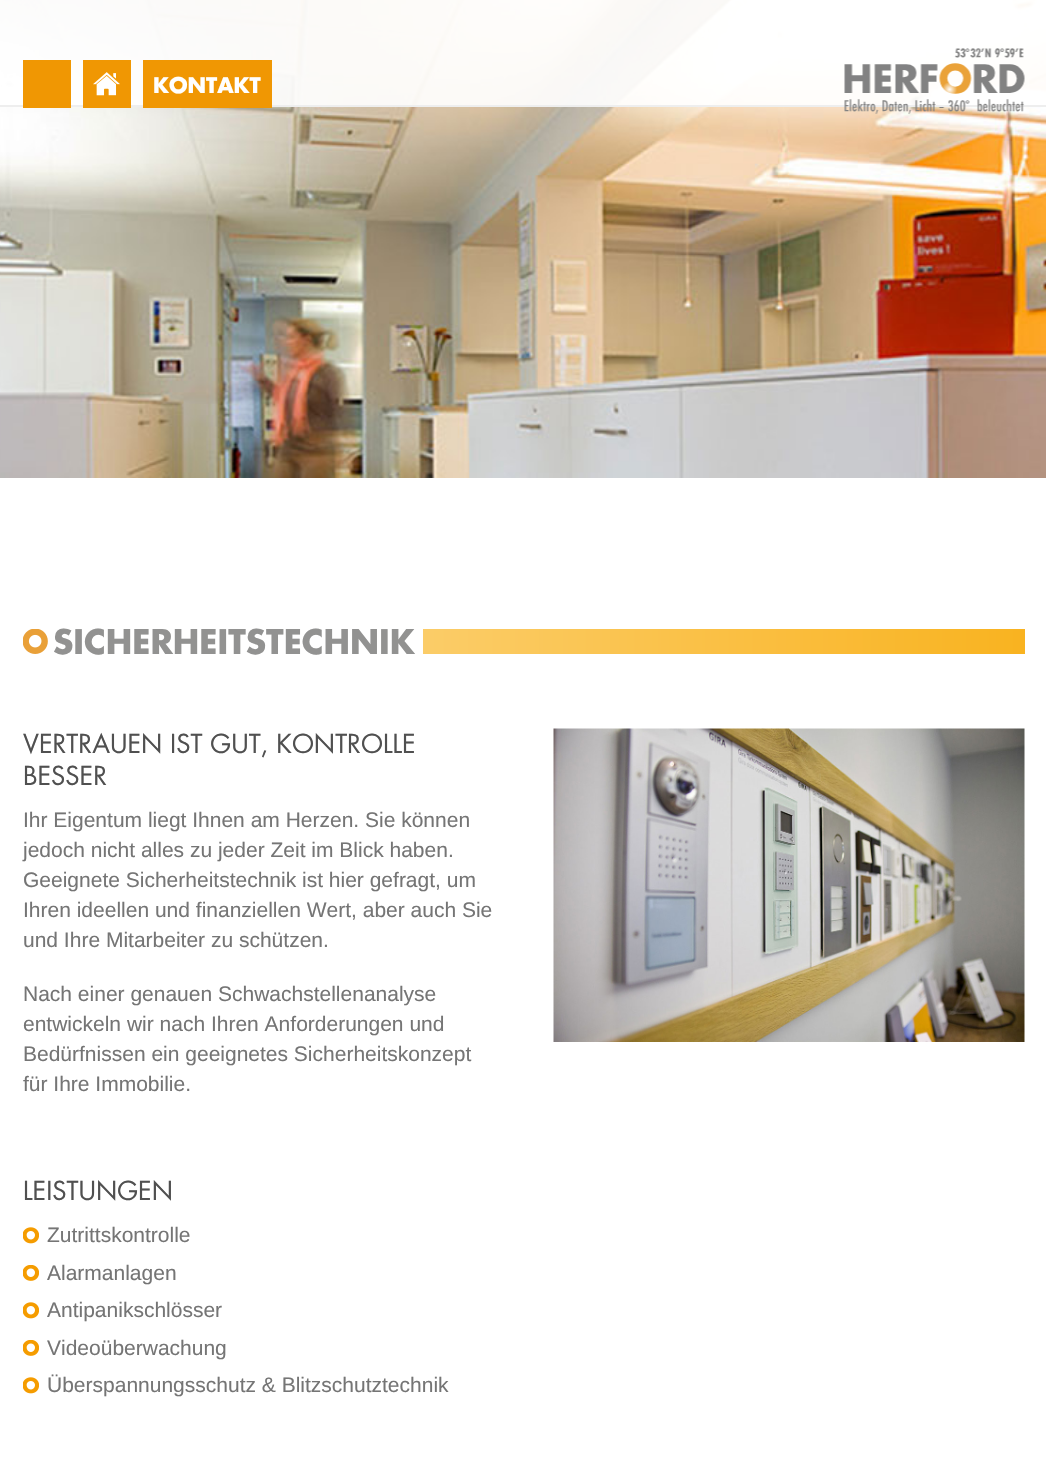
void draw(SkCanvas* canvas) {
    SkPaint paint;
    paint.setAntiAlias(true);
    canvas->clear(0xFFFFFFFF);
    canvas->drawImageRect(SkImages::DeferredFromEncodedData(SkData::MakeFromFileName("img1.png")), SkRect::MakeXYWH(0, 0, 1046, 478), SkSamplingOptions());
    paint.setColor(0xE6FFFFFF);
    canvas->drawRect(SkRect::MakeXYWH(0, 0, 1046, 105), paint);
    paint.setColor(0xFFEEEEEE);
    canvas->drawRect(SkRect::MakeXYWH(0, 105, 1046, 2), paint);
    paint.setColor(0xFFF09703);
    canvas->drawRect(SkRect::MakeXYWH(23, 60, 48, 48), paint);
    canvas->drawRect(SkRect::MakeXYWH(83, 60, 48, 48), paint);
    canvas->drawImageRect(SkImages::DeferredFromEncodedData(SkData::MakeFromFileName("img2.png")), SkRect::MakeXYWH(93, 72, 27, 24), SkSamplingOptions());
    canvas->drawRect(SkRect::MakeXYWH(143, 60, 129, 48), paint);
    SkFont font1(fontMgr->matchFamilyStyle("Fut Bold", SkFontStyle::Bold()), 21);
    font1.setSubpixel(true);
    paint.setColor(0xFFFFFFFF);
    canvas->drawString("KONTAKT", 153, 93, font1, paint);
    canvas->drawImageRect(SkImages::DeferredFromEncodedData(SkData::MakeFromFileName("img3.png")), SkRect::MakeXYWH(844, 48, 181, 66), SkSamplingOptions());
    canvas->drawImageRect(SkImages::DeferredFromEncodedData(SkData::MakeFromFileName("img4.png")), SkRect::MakeXYWH(23, 629, 25, 25), SkSamplingOptions());
    SkFont font2(fontMgr->matchFamilyStyle("Fut Bold", SkFontStyle::Bold()), 33);
    font2.setSubpixel(true);
    paint.setColor(0xFF929291);
    canvas->drawString("SICHERHEITSTECHNIK", 53, 654, font2, paint);
    {
        const SkColor colors[] = {0xFFFCDC94, 0xFFF9B320};
        const float stops[] = {0, 1};
        const SkPoint ends[] = {{53, 641}, {1025, 641}};
        paint.setShader(SkGradientShader::MakeLinear(ends, colors, stops, 2, SkTileMode::kClamp));
        paint.setAlpha(255);
    }
    canvas->drawRect(SkRect::MakeXYWH(423, 629, 602, 25), paint);
    SkFont font3(fontMgr->matchFamilyStyle("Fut", SkFontStyle::Normal()), 25.5f);
    font3.setSubpixel(true);
    paint.setShader(nullptr);
    paint.setColor(0xFF505050);
    canvas->drawString("VERTRAUEN IST GUT, KONTROLLE", 23, 753, font3, paint);
    canvas->drawString("BESSER", 23, 785, font3, paint);
    SkFont font4(fontMgr->matchFamilyStyle("Liberation Sans", SkFontStyle::Normal()), 21);
    font4.setSubpixel(true);
    paint.setColor(0xFF757575);
    canvas->drawString("Ihr Eigentum liegt Ihnen am Herzen. Sie können", 23, 827, font4, paint);
    canvas->drawString("jedoch nicht alles zu jeder Zeit im Blick haben.", 23, 857, font4, paint);
    canvas->drawString("Geeignete Sicherheitstechnik ist hier gefragt, um", 23, 887, font4, paint);
    canvas->drawString("Ihren ideellen und finanziellen Wert, aber auch Sie", 23, 917, font4, paint);
    canvas->drawString("und Ihre Mitarbeiter zu schützen.", 23, 947, font4, paint);
    canvas->drawString("Nach einer genauen Schwachstellenanalyse", 23, 1001, font4, paint);
    canvas->drawString("entwickeln wir nach Ihren Anforderungen und", 23, 1031, font4, paint);
    canvas->drawString("Bedürfnissen ein geeignetes Sicherheitskonzept", 23, 1061, font4, paint);
    canvas->drawString("für Ihre Immobilie.", 23, 1091, font4, paint);
    paint.setColor(0xFF505050);
    canvas->drawString("LEISTUNGEN", 23, 1200, font3, paint);
    canvas->drawImageRect(SkImages::DeferredFromEncodedData(SkData::MakeFromFileName("img5.png")), SkRect::MakeXYWH(23, 1227, 16, 17), SkSamplingOptions());
    paint.setColor(0xFF757575);
    canvas->drawString("Zutrittskontrolle", 47, 1242, font4, paint);
    canvas->drawImageRect(SkImages::DeferredFromEncodedData(SkData::MakeFromFileName("img6.png")), SkRect::MakeXYWH(23, 1265, 16, 16), SkSamplingOptions());
    canvas->drawString("Alarmanlagen", 47, 1280, font4, paint);
    canvas->drawImageRect(SkImages::DeferredFromEncodedData(SkData::MakeFromFileName("img5.png")), SkRect::MakeXYWH(23, 1302, 16, 17), SkSamplingOptions());
    canvas->drawString("Antipanikschlösser", 47, 1317, font4, paint);
    canvas->drawImageRect(SkImages::DeferredFromEncodedData(SkData::MakeFromFileName("img6.png")), SkRect::MakeXYWH(23, 1340, 16, 16), SkSamplingOptions());
    canvas->drawString("Videoüberwachung", 47, 1355, font4, paint);
    canvas->drawImageRect(SkImages::DeferredFromEncodedData(SkData::MakeFromFileName("img5.png")), SkRect::MakeXYWH(23, 1377, 16, 17), SkSamplingOptions());
    canvas->drawString("Überspannungsschutz & Blitzschutztechnik", 47, 1392, font4, paint);
    canvas->drawImageRect(SkImages::DeferredFromEncodedData(SkData::MakeFromFileName("img7.png")), SkRect::MakeXYWH(553, 728, 472, 314), SkSamplingOptions());
}
